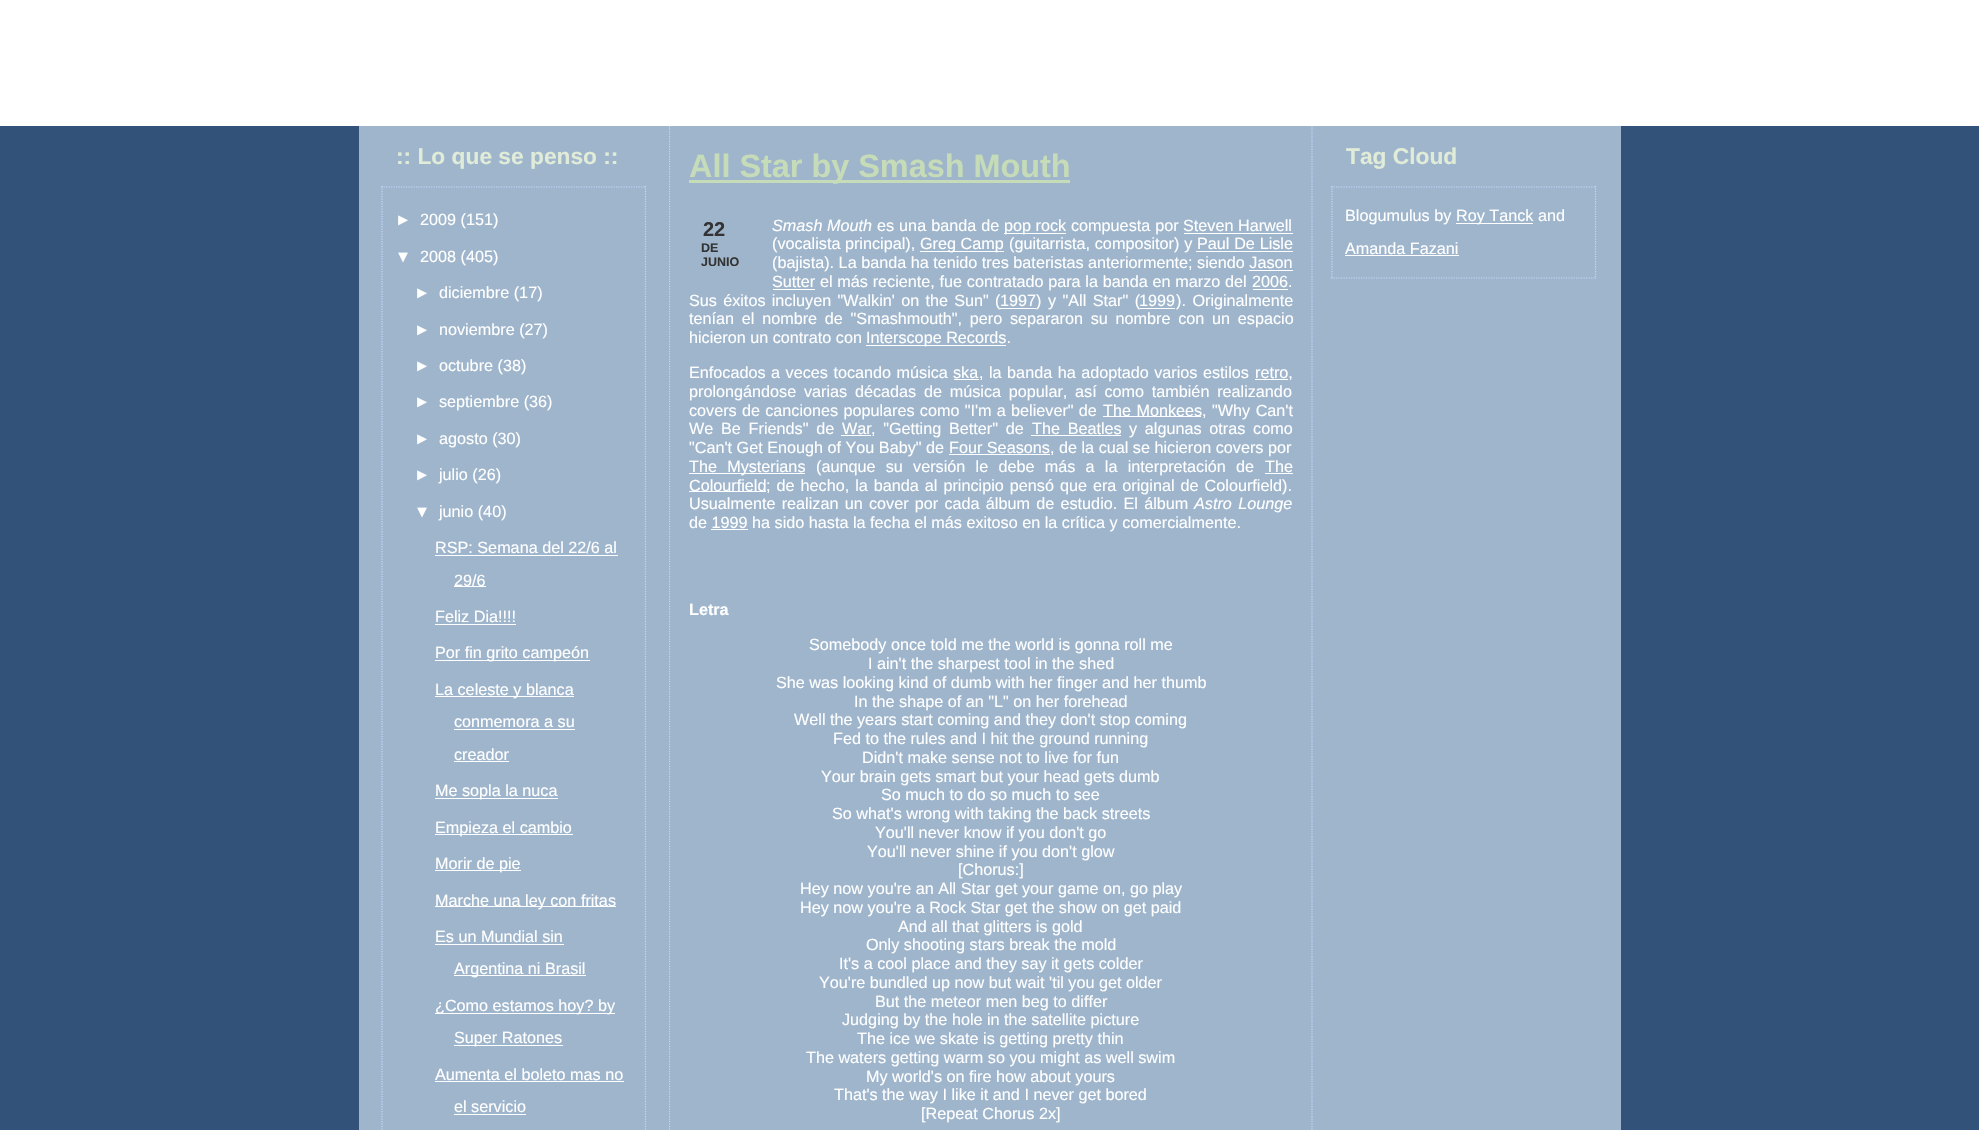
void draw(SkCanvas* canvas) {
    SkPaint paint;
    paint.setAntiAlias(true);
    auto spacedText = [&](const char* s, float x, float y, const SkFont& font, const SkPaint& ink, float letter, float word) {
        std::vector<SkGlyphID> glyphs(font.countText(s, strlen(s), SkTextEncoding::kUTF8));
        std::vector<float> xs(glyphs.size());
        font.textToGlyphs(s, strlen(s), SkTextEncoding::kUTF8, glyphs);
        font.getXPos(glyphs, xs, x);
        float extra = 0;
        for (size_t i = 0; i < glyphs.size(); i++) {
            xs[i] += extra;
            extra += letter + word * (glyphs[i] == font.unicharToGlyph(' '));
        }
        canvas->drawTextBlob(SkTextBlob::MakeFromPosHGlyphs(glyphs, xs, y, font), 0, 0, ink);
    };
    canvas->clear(0xFF32527A);
    paint.setColor(0xFF9EB5CC);
    canvas->drawRect(SkRect::MakeXYWH(359, 126, 1262, 1004), paint);
    paint.setStyle(SkPaint::kStroke_Style);
    paint.setStrokeWidth(1.2f);
    paint.setColor(0xFFC3D9FF);
    paint.setPathEffect(SkDashPathEffect::Make({{1.25f, 1.25f}}, 0));
    canvas->drawPath(SkPathBuilder().moveTo(1312, 116).lineTo(1312, 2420).detach(), paint);
    paint.setPathEffect(nullptr);
    canvas->save();
    canvas->clipRect(SkRect::MakeXYWH(669, 116, 644, 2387));
    paint.setPathEffect(SkDashPathEffect::Make({{1.25f, 1.25f}}, 0));
    canvas->drawPath(SkPathBuilder().moveTo(669.5f, 116).lineTo(669.5f, 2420).detach(), paint);
    paint.setPathEffect(nullptr);
    canvas->restore();
    paint.setStyle(SkPaint::kFill_Style);
    paint.setColor(0xFFFFFFFF);
    canvas->drawRect(SkRect::MakeXYWH(0, 0, 1979, 126), paint);
    SkFont font1(fontMgr->matchFamilyStyle("Liberation Sans", SkFontStyle::Bold()), 22.75f);
    font1.setSubpixel(true);
    paint.setColor(0xFFE0EBD8);
    canvas->drawString(":: Lo que se penso ::", 396, 164, font1, paint);
    paint.setStyle(SkPaint::kStroke_Style);
    paint.setColor(0xFFC3D9FF);
    paint.setPathEffect(SkDashPathEffect::Make({{1.25f, 1.25f}}, 0));
    canvas->drawPath(SkPathBuilder().moveTo(381, 187).lineTo(646, 187).detach(), paint);
    paint.setPathEffect(nullptr);
    paint.setPathEffect(SkDashPathEffect::Make({{1.25f, 1.25f}}, 0));
    canvas->drawPath(SkPathBuilder().moveTo(645.5f, 186).lineTo(645.5f, 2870).detach(), paint);
    paint.setPathEffect(nullptr);
    paint.setPathEffect(SkDashPathEffect::Make({{1.25f, 1.25f}}, 0));
    canvas->drawPath(SkPathBuilder().moveTo(382, 186).lineTo(382, 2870).detach(), paint);
    paint.setPathEffect(nullptr);
    SkFont font2(fontMgr->matchFamilyStyle("Liberation Sans", SkFontStyle::Normal()), 16.2f);
    font2.setSubpixel(true);
    paint.setStyle(SkPaint::kFill_Style);
    paint.setColor(0xFFFFFFFF);
    canvas->drawString("►", 395, 225, font2, paint);
    canvas->drawString("2009 (151)", 420, 225, font2, paint);
    canvas->drawString("▼", 395, 262, font2, paint);
    canvas->drawString("2008 (405)", 420, 262, font2, paint);
    canvas->drawString("►", 414, 298, font2, paint);
    canvas->drawString("diciembre (17)", 439, 298, font2, paint);
    canvas->drawString("►", 414, 335, font2, paint);
    canvas->drawString("noviembre (27)", 439, 335, font2, paint);
    canvas->drawString("►", 414, 371, font2, paint);
    canvas->drawString("octubre (38)", 439, 371, font2, paint);
    canvas->drawString("►", 414, 407, font2, paint);
    canvas->drawString("septiembre (36)", 439, 407, font2, paint);
    canvas->drawString("►", 414, 444, font2, paint);
    canvas->drawString("agosto (30)", 439, 444, font2, paint);
    canvas->drawString("►", 414, 480, font2, paint);
    canvas->drawString("julio (26)", 439, 480, font2, paint);
    canvas->drawString("▼", 414, 517, font2, paint);
    canvas->drawString("junio (40)", 439, 517, font2, paint);
    canvas->drawString("RSP: Semana del 22/6 al", 435, 553, font2, paint);
    canvas->drawRect(SkRect::MakeXYWH(435, 555, 183, 1), paint);
    canvas->drawRect(SkRect::MakeXYWH(454, 586, 32, 1), paint);
    canvas->drawString("29/6", 454, 586, font2, paint);
    canvas->drawString("Feliz Dia!!!!", 435, 622, font2, paint);
    canvas->drawRect(SkRect::MakeXYWH(435, 624, 81, 1), paint);
    canvas->drawRect(SkRect::MakeXYWH(435, 660, 155, 1), paint);
    canvas->drawString("Por fin grito campeón", 435, 658, font2, paint);
    canvas->drawRect(SkRect::MakeXYWH(435, 696, 139, 1), paint);
    canvas->drawString("La celeste y blanca", 435, 695, font2, paint);
    canvas->drawString("conmemora a su", 454, 727, font2, paint);
    canvas->drawRect(SkRect::MakeXYWH(454, 729, 121, 1), paint);
    canvas->drawString("creador", 454, 760, font2, paint);
    canvas->drawRect(SkRect::MakeXYWH(454, 761, 55, 1), paint);
    canvas->drawRect(SkRect::MakeXYWH(435, 798, 123, 1), paint);
    canvas->drawString("Me sopla la nuca", 435, 796, font2, paint);
    canvas->drawRect(SkRect::MakeXYWH(435, 834, 138, 1), paint);
    canvas->drawString("Empieza el cambio", 435, 833, font2, paint);
    canvas->drawRect(SkRect::MakeXYWH(435, 870, 86, 1), paint);
    canvas->drawString("Morir de pie", 435, 869, font2, paint);
    canvas->drawRect(SkRect::MakeXYWH(435, 906, 181, 1), paint);
    canvas->drawString("Marche una ley con fritas", 435, 906, font2, paint);
    canvas->drawString("Es un Mundial sin", 435, 942, font2, paint);
    canvas->drawRect(SkRect::MakeXYWH(435, 944, 129, 1), paint);
    canvas->drawRect(SkRect::MakeXYWH(454, 975, 132, 1), paint);
    canvas->drawString("Argentina ni Brasil", 454, 974, font2, paint);
    canvas->drawRect(SkRect::MakeXYWH(435, 1013, 180, 1), paint);
    canvas->drawString("¿Como estamos hoy? by", 435, 1011, font2, paint);
    canvas->drawRect(SkRect::MakeXYWH(454, 1045, 109, 1), paint);
    canvas->drawString("Super Ratones", 454, 1043, font2, paint);
    canvas->drawString("Aumenta el boleto mas no", 435, 1080, font2, paint);
    canvas->drawRect(SkRect::MakeXYWH(435, 1081, 189, 1), paint);
    canvas->drawString("el servicio", 454, 1112, font2, paint);
    canvas->drawRect(SkRect::MakeXYWH(454, 1114, 72, 1), paint);
    paint.setColor(0xFFC6DBB7);
    canvas->drawRect(SkRect::MakeXYWH(689, 180, 381, 3), paint);
    SkFont font3(fontMgr->matchFamilyStyle("Liberation Sans", SkFontStyle::Bold()), 32.4f);
    font3.setSubpixel(true);
    canvas->drawString("All Star by Smash Mouth", 689, 177, font3, paint);
    SkFont font4(fontMgr->matchFamilyStyle("Liberation Sans", SkFontStyle::Italic()), 16.2f);
    font4.setSubpixel(true);
    paint.setColor(0xFFFFFFFF);
    canvas->drawString("Smash Mouth", 772, 231, font4, paint);
    spacedText("es una banda de", 877, 231, font2, paint, 0, 0.5f);
    canvas->drawRect(SkRect::MakeXYWH(1004, 233, 62, 1), paint);
    canvas->drawString("pop rock", 1004, 231, font2, paint);
    spacedText("compuesta por", 1071, 231, font2, paint, 0, 0.5f);
    canvas->drawString("Steven Harwell", 1183, 231, font2, paint);
    canvas->drawRect(SkRect::MakeXYWH(1184, 233, 109, 1), paint);
    canvas->drawString("(vocalista principal),", 772, 249, font2, paint);
    canvas->drawRect(SkRect::MakeXYWH(920, 251, 84, 1), paint);
    canvas->drawString("Greg Camp", 920, 249, font2, paint);
    spacedText("(guitarrista, compositor) y Paul De Lisle", 1009, 249, font2, paint, 0, 0.25f);
    canvas->drawRect(SkRect::MakeXYWH(1196, 251, 97, 1), paint);
    canvas->drawString("(bajista). La banda ha tenido tres bateristas anteriormente; siendo Jason", 772, 268, font2, paint);
    canvas->drawString("Sutter", 772, 287, font2, paint);
    canvas->drawRect(SkRect::MakeXYWH(1249, 270, 44, 1), paint);
    canvas->drawRect(SkRect::MakeXYWH(773, 289, 42, 1), paint);
    spacedText("el más reciente, fue contratado para la banda en marzo del", 820, 287, font2, paint, 0, 0.25f);
    canvas->drawString("2006.", 1252, 287, font2, paint);
    canvas->drawRect(SkRect::MakeXYWH(1253, 289, 35, 1), paint);
    spacedText("Sus éxitos incluyen \"Walkin' on the Sun\" (", 689, 306, font2, paint, 0, 1.75f);
    canvas->drawString("1997", 1000, 306, font2, paint);
    canvas->drawRect(SkRect::MakeXYWH(1000, 308, 36, 1), paint);
    spacedText(") y \"All Star\" (", 1036, 306, font2, paint, 0, 2);
    canvas->drawString("1999", 1139, 306, font2, paint);
    canvas->drawRect(SkRect::MakeXYWH(1140, 308, 35, 1), paint);
    spacedText("). Originalmente", 1176, 306, font2, paint, 0, 2);
    spacedText("tenían el nombre de \"Smashmouth\", pero separaron su nombre con un espacio", 689, 324, font2, paint, 0, 3.25f);
    canvas->drawString("hicieron un contrato con", 689, 343, font2, paint);
    canvas->drawRect(SkRect::MakeXYWH(866, 345, 140, 1), paint);
    canvas->drawString("Interscope Records.", 866, 343, font2, paint);
    SkFont font5(fontMgr->matchFamilyStyle("Liberation Sans", SkFontStyle::Bold()), 20);
    font5.setSubpixel(true);
    paint.setColor(0xFF333333);
    canvas->drawString("22", 703, 236, font5, paint);
    SkFont font6(fontMgr->matchFamilyStyle("Liberation Sans", SkFontStyle::Bold()), 12.5f);
    font6.setSubpixel(true);
    canvas->drawString("DE", 701, 252, font6, paint);
    canvas->drawString("JUNIO", 701, 266, font6, paint);
    paint.setColor(0xFFFFFFFF);
    spacedText("Enfocados a veces tocando música", 689, 378, font2, paint, 0, 1);
    canvas->drawString("ska", 953, 378, font2, paint);
    canvas->drawRect(SkRect::MakeXYWH(954, 379, 25, 1), paint);
    spacedText(", la banda ha adoptado varios estilos", 979, 378, font2, paint, 0, 1);
    canvas->drawRect(SkRect::MakeXYWH(1255, 379, 33, 1), paint);
    canvas->drawString("retro,", 1255, 378, font2, paint);
    spacedText("prolongándose varias décadas de música popular, así como también realizando", 689, 397, font2, paint, 0, 3.25f);
    spacedText("covers de canciones populares como \"I'm a believer\" de", 689, 416, font2, paint, 0, 0.75f);
    canvas->drawRect(SkRect::MakeXYWH(1103, 416, 98, 1), paint);
    spacedText("The Monkees", 1103, 416, font2, paint, 0, 1);
    spacedText(", \"Why Can't", 1202, 416, font2, paint, 0, 1);
    spacedText("We Be Friends\" de", 689, 434, font2, paint, 0, 3.25f);
    canvas->drawString("War", 842, 434, font2, paint);
    canvas->drawRect(SkRect::MakeXYWH(841, 435, 30, 1), paint);
    spacedText(", \"Getting Better\" de", 871, 434, font2, paint, 0, 3.25f);
    spacedText("The Beatles", 1032, 434, font2, paint, 0, 3.25f);
    canvas->drawRect(SkRect::MakeXYWH(1031, 435, 90, 1), paint);
    spacedText("y algunas otras como", 1129, 434, font2, paint, 0, 3.25f);
    canvas->drawString("\"Can't Get Enough of You Baby\" de", 689, 453, font2, paint);
    canvas->drawString("Four Seasons", 949, 453, font2, paint);
    canvas->drawRect(SkRect::MakeXYWH(949, 454, 101, 1), paint);
    canvas->drawString(", de la cual se hicieron covers por", 1050, 453, font2, paint);
    canvas->drawRect(SkRect::MakeXYWH(689, 473, 116, 1), paint);
    spacedText("The Mysterians", 689, 472, font2, paint, 0, 5.75f);
    spacedText("(aunque su versión le debe más a la interpretación de", 816, 472, font2, paint, 0, 5.75f);
    canvas->drawString("The", 1265, 472, font2, paint);
    canvas->drawRect(SkRect::MakeXYWH(1265, 473, 28, 1), paint);
    canvas->drawRect(SkRect::MakeXYWH(689, 491, 77, 1), paint);
    canvas->drawString("Colourfield", 689, 491, font2, paint);
    spacedText("; de hecho, la banda al principio pensó que era original de Colourfield).", 766, 491, font2, paint, 0, 1.5f);
    spacedText("Usualmente realizan un cover por cada álbum de estudio. El álbum", 689, 509, font2, paint, 0, 1.75f);
    spacedText("Astro Lounge", 1194, 509, font4, paint, 0, 2);
    canvas->drawString("de 1999 ha sido hasta la fecha el más exitoso en la crítica y comercialmente.", 689, 528, font2, paint);
    canvas->drawRect(SkRect::MakeXYWH(711, 529, 37, 1), paint);
    SkFont font7(fontMgr->matchFamilyStyle("Liberation Sans", SkFontStyle::Bold()), 16.2f);
    font7.setSubpixel(true);
    canvas->drawString("Letra", 689, 615, font7, paint);
    canvas->drawString("Somebody once told me the world is gonna roll me", 809, 650, font2, paint);
    canvas->drawString("I ain't the sharpest tool in the shed", 868, 669, font2, paint);
    canvas->drawString("She was looking kind of dumb with her finger and her thumb", 776, 688, font2, paint);
    canvas->drawString("In the shape of an \"L\" on her forehead", 854, 707, font2, paint);
    canvas->drawString("Well the years start coming and they don't stop coming", 794, 725, font2, paint);
    canvas->drawString("Fed to the rules and I hit the ground running", 833, 744, font2, paint);
    canvas->drawString("Didn't make sense not to live for fun", 862, 763, font2, paint);
    canvas->drawString("Your brain gets smart but your head gets dumb", 821, 782, font2, paint);
    canvas->drawString("So much to do so much to see", 881, 800, font2, paint);
    canvas->drawString("So what's wrong with taking the back streets", 832, 819, font2, paint);
    canvas->drawString("You'll never know if you don't go", 875, 838, font2, paint);
    canvas->drawString("You'll never shine if you don't glow", 867, 857, font2, paint);
    canvas->drawString("[Chorus:]", 958, 875, font2, paint);
    canvas->drawString("Hey now you're an All Star get your game on, go play", 800, 894, font2, paint);
    canvas->drawString("Hey now you're a Rock Star get the show on get paid", 800, 913, font2, paint);
    canvas->drawString("And all that glitters is gold", 898, 932, font2, paint);
    canvas->drawString("Only shooting stars break the mold", 866, 950, font2, paint);
    canvas->drawString("It's a cool place and they say it gets colder", 839, 969, font2, paint);
    canvas->drawString("You're bundled up now but wait 'til you get older", 819, 988, font2, paint);
    canvas->drawString("But the meteor men beg to differ", 875, 1007, font2, paint);
    canvas->drawString("Judging by the hole in the satellite picture", 842, 1025, font2, paint);
    canvas->drawString("The ice we skate is getting pretty thin", 857, 1044, font2, paint);
    canvas->drawString("The waters getting warm so you might as well swim", 806, 1063, font2, paint);
    canvas->drawString("My world's on fire how about yours", 866, 1082, font2, paint);
    canvas->drawString("That's the way I like it and I never get bored", 834, 1100, font2, paint);
    canvas->drawString("[Repeat Chorus 2x]", 921, 1119, font2, paint);
    paint.setColor(0xFFE0EBD8);
    canvas->drawString("Tag Cloud", 1346, 164, font1, paint);
    paint.setStyle(SkPaint::kStroke_Style);
    paint.setColor(0xFFC3D9FF);
    paint.setPathEffect(SkDashPathEffect::Make({{1.25f, 1.25f}}, 0));
    canvas->drawPath(SkPathBuilder().moveTo(1331, 187).lineTo(1596, 187).detach(), paint);
    paint.setPathEffect(nullptr);
    paint.setPathEffect(SkDashPathEffect::Make({{1.25f, 1.25f}}, 0));
    canvas->drawPath(SkPathBuilder().moveTo(1595.5f, 186).lineTo(1595.5f, 279).detach(), paint);
    paint.setPathEffect(nullptr);
    paint.setPathEffect(SkDashPathEffect::Make({{1.25f, 1.25f}}, 0));
    canvas->drawPath(SkPathBuilder().moveTo(1331, 278).lineTo(1596, 278).detach(), paint);
    paint.setPathEffect(nullptr);
    paint.setPathEffect(SkDashPathEffect::Make({{1.25f, 1.25f}}, 0));
    canvas->drawPath(SkPathBuilder().moveTo(1332, 186).lineTo(1332, 279).detach(), paint);
    paint.setPathEffect(nullptr);
    paint.setStyle(SkPaint::kFill_Style);
    paint.setColor(0xFFFFFFFF);
    canvas->drawString("Blogumulus by", 1345, 221, font2, paint);
    canvas->drawRect(SkRect::MakeXYWH(1456, 223, 77, 1), paint);
    canvas->drawString("Roy Tanck and", 1456, 221, font2, paint);
    canvas->drawString("Amanda Fazani", 1345, 254, font2, paint);
    canvas->drawRect(SkRect::MakeXYWH(1345, 255, 114, 1), paint);
}
